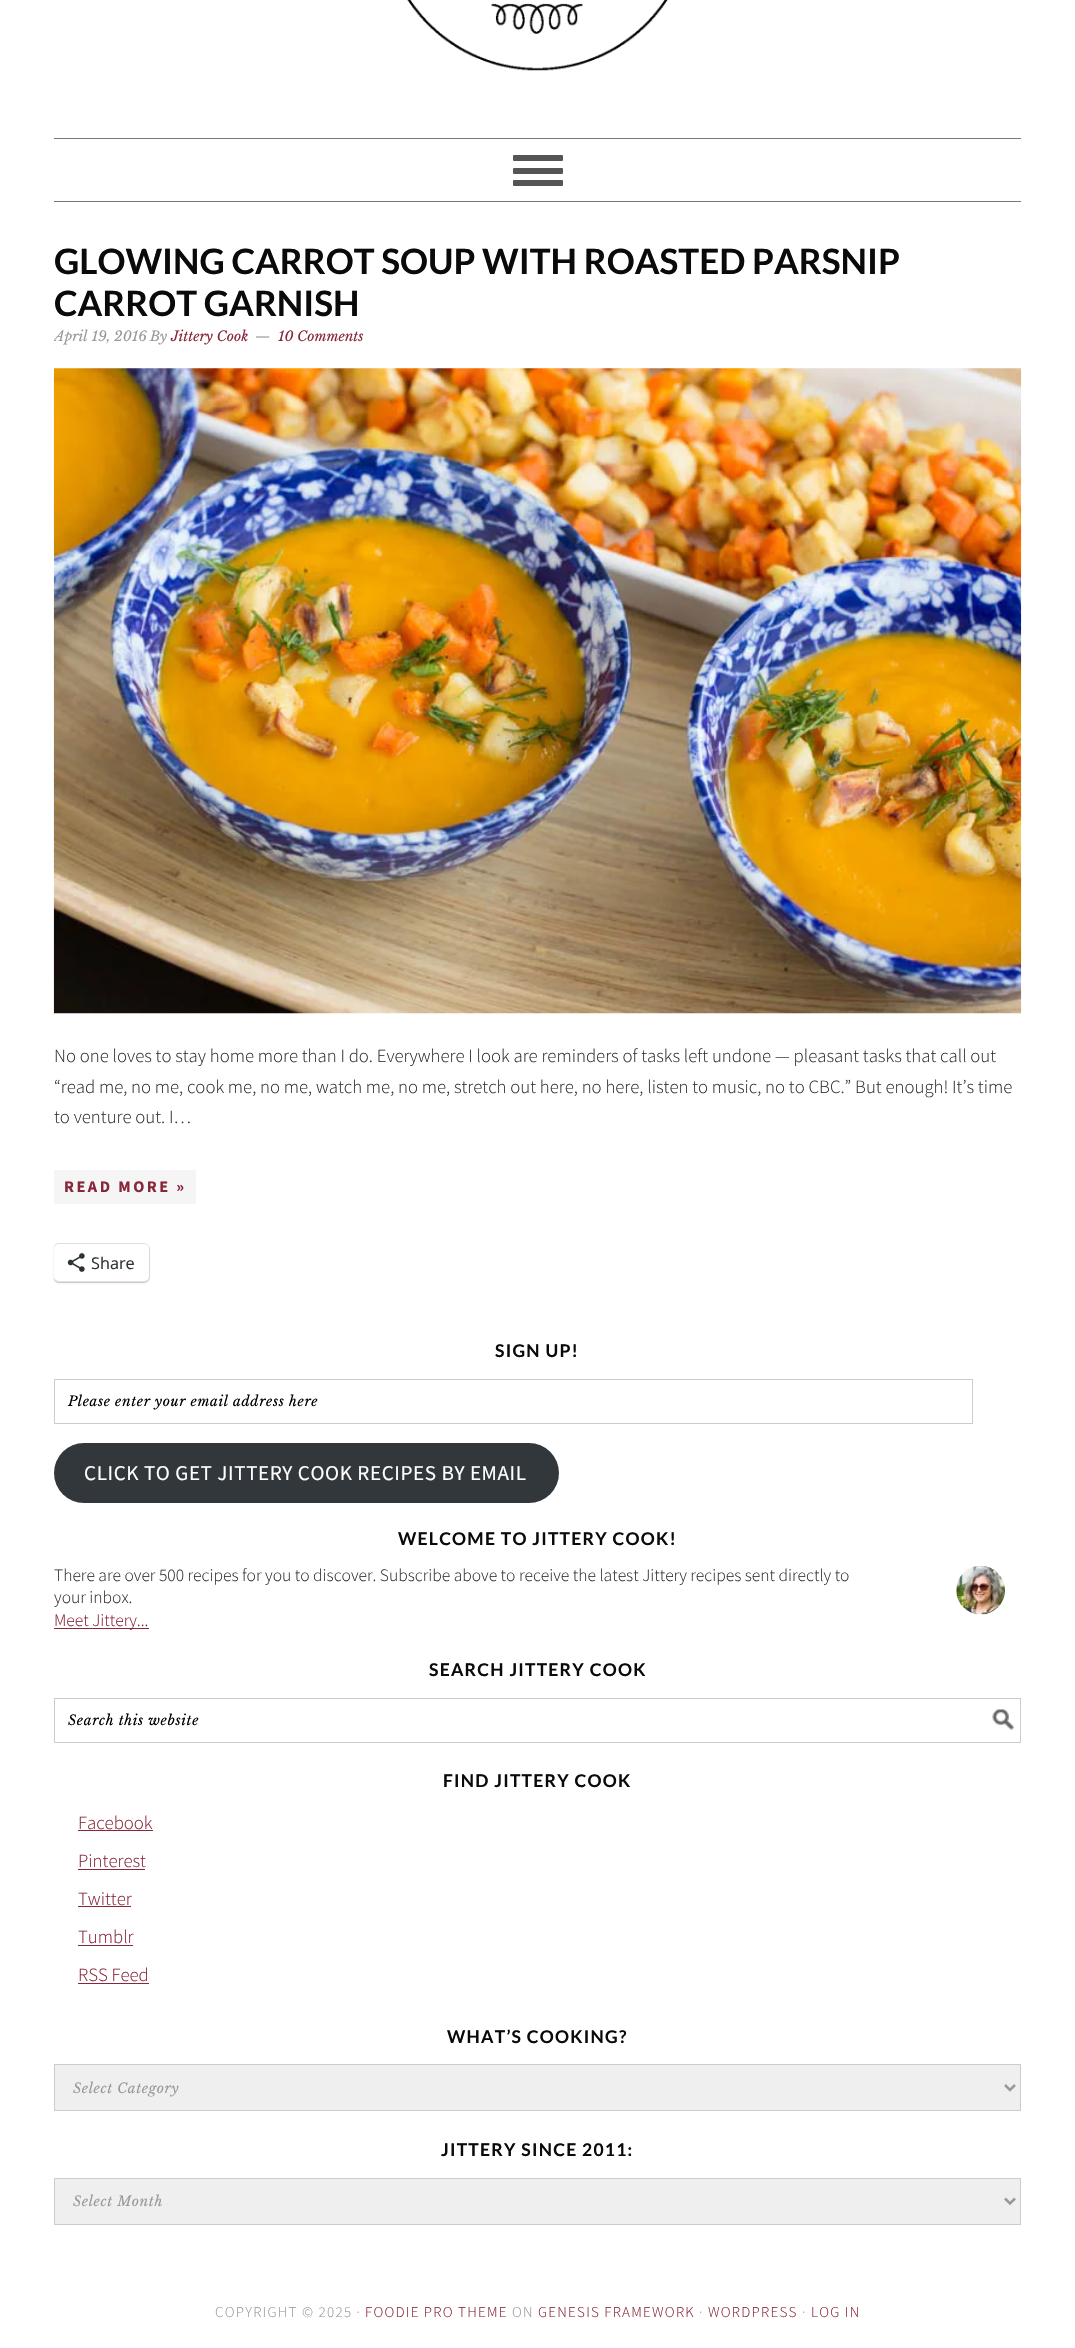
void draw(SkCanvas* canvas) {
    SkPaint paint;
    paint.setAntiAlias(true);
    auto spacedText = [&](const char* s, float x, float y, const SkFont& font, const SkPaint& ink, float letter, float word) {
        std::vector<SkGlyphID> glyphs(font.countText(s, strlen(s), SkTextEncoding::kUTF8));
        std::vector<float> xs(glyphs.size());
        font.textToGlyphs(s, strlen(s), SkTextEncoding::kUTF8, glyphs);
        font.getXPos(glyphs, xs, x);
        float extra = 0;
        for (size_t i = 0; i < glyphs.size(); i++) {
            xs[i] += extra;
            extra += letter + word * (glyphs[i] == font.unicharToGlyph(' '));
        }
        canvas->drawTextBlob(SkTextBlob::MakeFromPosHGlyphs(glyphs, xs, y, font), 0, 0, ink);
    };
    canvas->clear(0xFFFFFFFF);
    canvas->drawImageRect(SkImages::DeferredFromEncodedData(SkData::MakeFromFileName("img1.png")), SkRect::MakeXYWH(407, 0, 261, 71), SkSamplingOptions());
    paint.setColor(0xFF777777);
    canvas->drawRect(SkRect::MakeXYWH(54, 138, 967, 1), paint);
    canvas->drawRect(SkRect::MakeXYWH(54, 201, 967, 1), paint);
    paint.setColor(0xFF555555);
    canvas->drawRoundRect(SkRect::MakeXYWH(513, 168, 50, 6), 1, 1, paint);
    canvas->drawRoundRect(SkRect::MakeXYWH(513, 155, 50, 6), 1, 1, paint);
    canvas->drawRoundRect(SkRect::MakeXYWH(513, 180, 50, 6), 1, 1, paint);
    SkFont font1(fontMgr->matchFamilyStyle("Lato", SkFontStyle::Bold()), 35);
    font1.setSubpixel(true);
    paint.setColor(0xFF0A0A0A);
    canvas->drawString("GLOWING CARROT SOUP WITH ROASTED PARSNIP", 54, 274, font1, paint);
    canvas->drawString("CARROT GARNISH", 54, 316, font1, paint);
    canvas->save();
    canvas->clipRect(SkRect::MakeXYWH(54, 228, 967, 2022));
    SkFont font2(fontMgr->matchFamilyStyle("Libre Baskerville", SkFontStyle::Italic()), 13.75f);
    font2.setSubpixel(true);
    paint.setColor(0xFF999999);
    canvas->drawString("April 19, 2016", 54, 341, font2, paint);
    canvas->restore();
    canvas->drawString("By", 150, 341, font2, paint);
    paint.setColor(0xFF872739);
    canvas->drawString("Jittery Cook", 171, 341, font2, paint);
    paint.setColor(0xFF999999);
    canvas->drawString("—", 255, 341, font2, paint);
    paint.setColor(0xFF872739);
    canvas->drawString("10 Comments", 278, 341, font2, paint);
    canvas->drawImageRect(SkImages::DeferredFromEncodedData(SkData::MakeFromFileName("img2.png")), SkRect::MakeXYWH(53, 368, 969, 646), SkSamplingOptions());
    SkFont font3(fontMgr->matchFamilyStyle("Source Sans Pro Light", SkFontStyle(300, SkFontStyle::kNormal_Width, SkFontStyle::kUpright_Slant)), 18.75f);
    font3.setSubpixel(true);
    paint.setColor(0xFF333333);
    canvas->drawString("No one loves to stay home more than I do. Everywhere I look are reminders of tasks left undone — pleasant tasks that call out", 54, 1062, font3, paint);
    canvas->drawString("“read me, no me, cook me, no me, watch me, no me, stretch out here, no here, listen to music, no to CBC.” But enough! It’s time", 54, 1093, font3, paint);
    canvas->drawString("to venture out. I…", 54, 1123, font3, paint);
    paint.setColor(0xFFF5F5F5);
    canvas->drawRect(SkRect::MakeXYWH(54, 1170, 142, 34), paint);
    SkFont font4(fontMgr->matchFamilyStyle("Source Sans Pro", SkFontStyle::Bold()), 16.25f);
    font4.setSubpixel(true);
    paint.setColor(0xFF872739);
    spacedText("READ MORE »", 64, 1192, font4, paint, 2.5f, 0);
    canvas->save();
    canvas->clipRect(SkRect::MakeXYWH(54, 228, 967, 2022));
    paint.setStyle(SkPaint::kStroke_Style);
    paint.setStrokeWidth(1);
    paint.setColor(0xFFE0E0E0);
    canvas->drawRoundRect(SkRect::MakeXYWH(53.5f, 1243.5f, 96, 39), 5.5f, 5.5f, paint);
    canvas->restore();
    paint.setStyle(SkPaint::kFill_Style);
    paint.setColor(0x1F000000);
    paint.setMaskFilter(SkMaskFilter::MakeBlur(kNormal_SkBlurStyle, 1));
    canvas->drawRoundRect(SkRect::MakeXYWH(54, 1245, 95, 38), 5, 5, paint);
    paint.setMaskFilter(nullptr);
    paint.setColor(0xFFFFFFFF);
    canvas->drawRoundRect(SkRect::MakeXYWH(54, 1244, 95, 37), 5, 5, paint);
    canvas->drawImageRect(SkImages::DeferredFromEncodedData(SkData::MakeFromFileName("img3.png")), SkRect::MakeXYWH(67, 1253, 18, 19), SkSamplingOptions());
    SkFont font5(fontMgr->matchFamilyStyle("Open Sans", SkFontStyle::Normal()), 16.25f);
    font5.setSubpixel(true);
    paint.setColor(0xFF2C3338);
    canvas->drawString("Share", 91, 1269, font5, paint);
    SkFont font6(fontMgr->matchFamilyStyle("Lato", SkFontStyle::Bold()), 17.5f);
    font6.setSubpixel(true);
    paint.setColor(0xFF0A0A0A);
    spacedText("SIGN UP!", 495, 1357, font6, paint, 1.25f, 0);
    paint.setStyle(SkPaint::kStroke_Style);
    paint.setColor(0xFFCCCCCC);
    canvas->drawRect(SkRect::MakeXYWH(54.5f, 1379.5f, 918, 44), paint);
    paint.setStyle(SkPaint::kFill_Style);
    paint.setColor(0xFF000000);
    spacedText("Please enter your email address here", 68, 1406, font2, paint, 0.6f, 0);
    paint.setColor(0xFF32373C);
    canvas->drawRoundRect(SkRect::MakeXYWH(54, 1443, 505, 60), 30, 30, paint);
    SkFont font7(fontMgr->matchFamilyStyle("Source Sans Pro", SkFontStyle::Normal()), 21.1f);
    font7.setSubpixel(true);
    paint.setColor(0xFFFFFFFF);
    spacedText("CLICK TO GET JITTERY COOK RECIPES BY EMAIL", 84, 1480, font7, paint, 0.6f, 0);
    paint.setColor(0xFF0A0A0A);
    spacedText("WELCOME TO JITTERY COOK!", 398, 1545, font6, paint, 1.25f, 0);
    SkFont font8(fontMgr->matchFamilyStyle("Source Sans Pro Light", SkFontStyle(300, SkFontStyle::kNormal_Width, SkFontStyle::kUpright_Slant)), 17.5f);
    font8.setSubpixel(true);
    paint.setColor(0xFF333333);
    canvas->drawString("There are over 500 recipes for you to discover. Subscribe above to receive the latest Jittery recipes sent directly to", 54, 1581, font8, paint);
    canvas->drawImageRect(SkImages::DeferredFromEncodedData(SkData::MakeFromFileName("img4.png")), SkRect::MakeXYWH(956, 1566, 49, 49), SkSamplingOptions());
    canvas->drawString("your inbox.", 54, 1603, font8, paint);
    paint.setColor(0xFF872739);
    canvas->drawRect(SkRect::MakeXYWH(54, 1628, 95, 1), paint);
    canvas->drawString("Meet Jittery...", 54, 1626, font8, paint);
    paint.setColor(0xFF0A0A0A);
    spacedText("SEARCH JITTERY COOK", 429, 1676, font6, paint, 1.25f, 0);
    canvas->drawImageRect(SkImages::DeferredFromEncodedData(SkData::MakeFromFileName("img5.png")), SkRect::MakeXYWH(992, 1709, 22, 21), SkSamplingOptions());
    paint.setStyle(SkPaint::kStroke_Style);
    paint.setColor(0xFFCCCCCC);
    canvas->drawRect(SkRect::MakeXYWH(54.5f, 1698.5f, 966, 44), paint);
    paint.setStyle(SkPaint::kFill_Style);
    paint.setColor(0xFF000000);
    spacedText("Search this website", 68, 1725, font2, paint, 0.6f, 0);
    paint.setColor(0xFF0A0A0A);
    spacedText("FIND JITTERY COOK", 443, 1787, font6, paint, 1.25f, 0);
    paint.setColor(0xFF872739);
    canvas->drawString("Facebook", 78, 1829, font3, paint);
    canvas->drawRect(SkRect::MakeXYWH(78, 1830, 75, 1), paint);
    canvas->drawString("Pinterest", 78, 1867, font3, paint);
    canvas->drawRect(SkRect::MakeXYWH(78, 1869, 67, 1), paint);
    canvas->drawString("Twitter", 78, 1905, font3, paint);
    canvas->drawRect(SkRect::MakeXYWH(78, 1906, 53, 1), paint);
    canvas->drawString("Tumblr", 78, 1943, font3, paint);
    canvas->drawRect(SkRect::MakeXYWH(78, 1945, 55, 1), paint);
    canvas->drawString("RSS Feed", 78, 1981, font3, paint);
    canvas->drawRect(SkRect::MakeXYWH(78, 1983, 71, 1), paint);
    paint.setColor(0xFF0A0A0A);
    spacedText("WHAT’S COOKING?", 447, 2043, font6, paint, 1.25f, 0);
    paint.setColor(0xFFEFEFEF);
    canvas->drawRect(SkRect::MakeXYWH(54.5f, 2064.5f, 966, 46), paint);
    paint.setStyle(SkPaint::kStroke_Style);
    paint.setColor(0xFFCCCCCC);
    canvas->drawRect(SkRect::MakeXYWH(54.5f, 2064.5f, 966, 46), paint);
    paint.setStrokeWidth(2.5f);
    paint.setColor(0xFF999999);
    canvas->drawPath(SkPathBuilder().moveTo(1005, 2085).lineTo(1010, 2090).lineTo(1015, 2085).detach(), paint);
    paint.setStyle(SkPaint::kFill_Style);
    spacedText("Select Category", 73, 2093, font2, paint, 0.6f, 0);
    paint.setColor(0xFF0A0A0A);
    spacedText("JITTERY SINCE 2011:", 441, 2156, font6, paint, 1.25f, 0);
    paint.setColor(0xFFEFEFEF);
    canvas->drawRect(SkRect::MakeXYWH(54.5f, 2178.5f, 966, 46), paint);
    paint.setStyle(SkPaint::kStroke_Style);
    paint.setStrokeWidth(1);
    paint.setColor(0xFFCCCCCC);
    canvas->drawRect(SkRect::MakeXYWH(54.5f, 2178.5f, 966, 46), paint);
    paint.setStrokeWidth(2.5f);
    paint.setColor(0xFF999999);
    canvas->drawPath(SkPathBuilder().moveTo(1005, 2198.5f).lineTo(1010, 2203.5f).lineTo(1015, 2198.5f).detach(), paint);
    paint.setStyle(SkPaint::kFill_Style);
    spacedText("Select Month", 73, 2206, font2, paint, 0.6f, 0);
    SkFont font9(fontMgr->matchFamilyStyle("Source Sans Pro Light", SkFontStyle(300, SkFontStyle::kNormal_Width, SkFontStyle::kUpright_Slant)), 15);
    font9.setSubpixel(true);
    spacedText("COPYRIGHT © 2025 ·", 215, 2317, font9, paint, 1.25f, 0);
    paint.setColor(0xFF872739);
    spacedText("FOODIE PRO THEME", 365, 2317, font9, paint, 1.25f, 0);
    paint.setColor(0xFF999999);
    spacedText("ON", 512, 2317, font9, paint, 1.25f, 0);
    paint.setColor(0xFF872739);
    spacedText("GENESIS FRAMEWORK", 538, 2317, font9, paint, 1.25f, 0);
    paint.setColor(0xFF999999);
    spacedText("·", 699, 2317, font9, paint, 1.25f, 0);
    paint.setColor(0xFF872739);
    spacedText("WORDPRESS", 708, 2317, font9, paint, 1.25f, 0);
    paint.setColor(0xFF999999);
    spacedText("·", 802, 2317, font9, paint, 1.25f, 0);
    paint.setColor(0xFF872739);
    spacedText("LOG IN", 811, 2317, font9, paint, 1.25f, 0);
}
